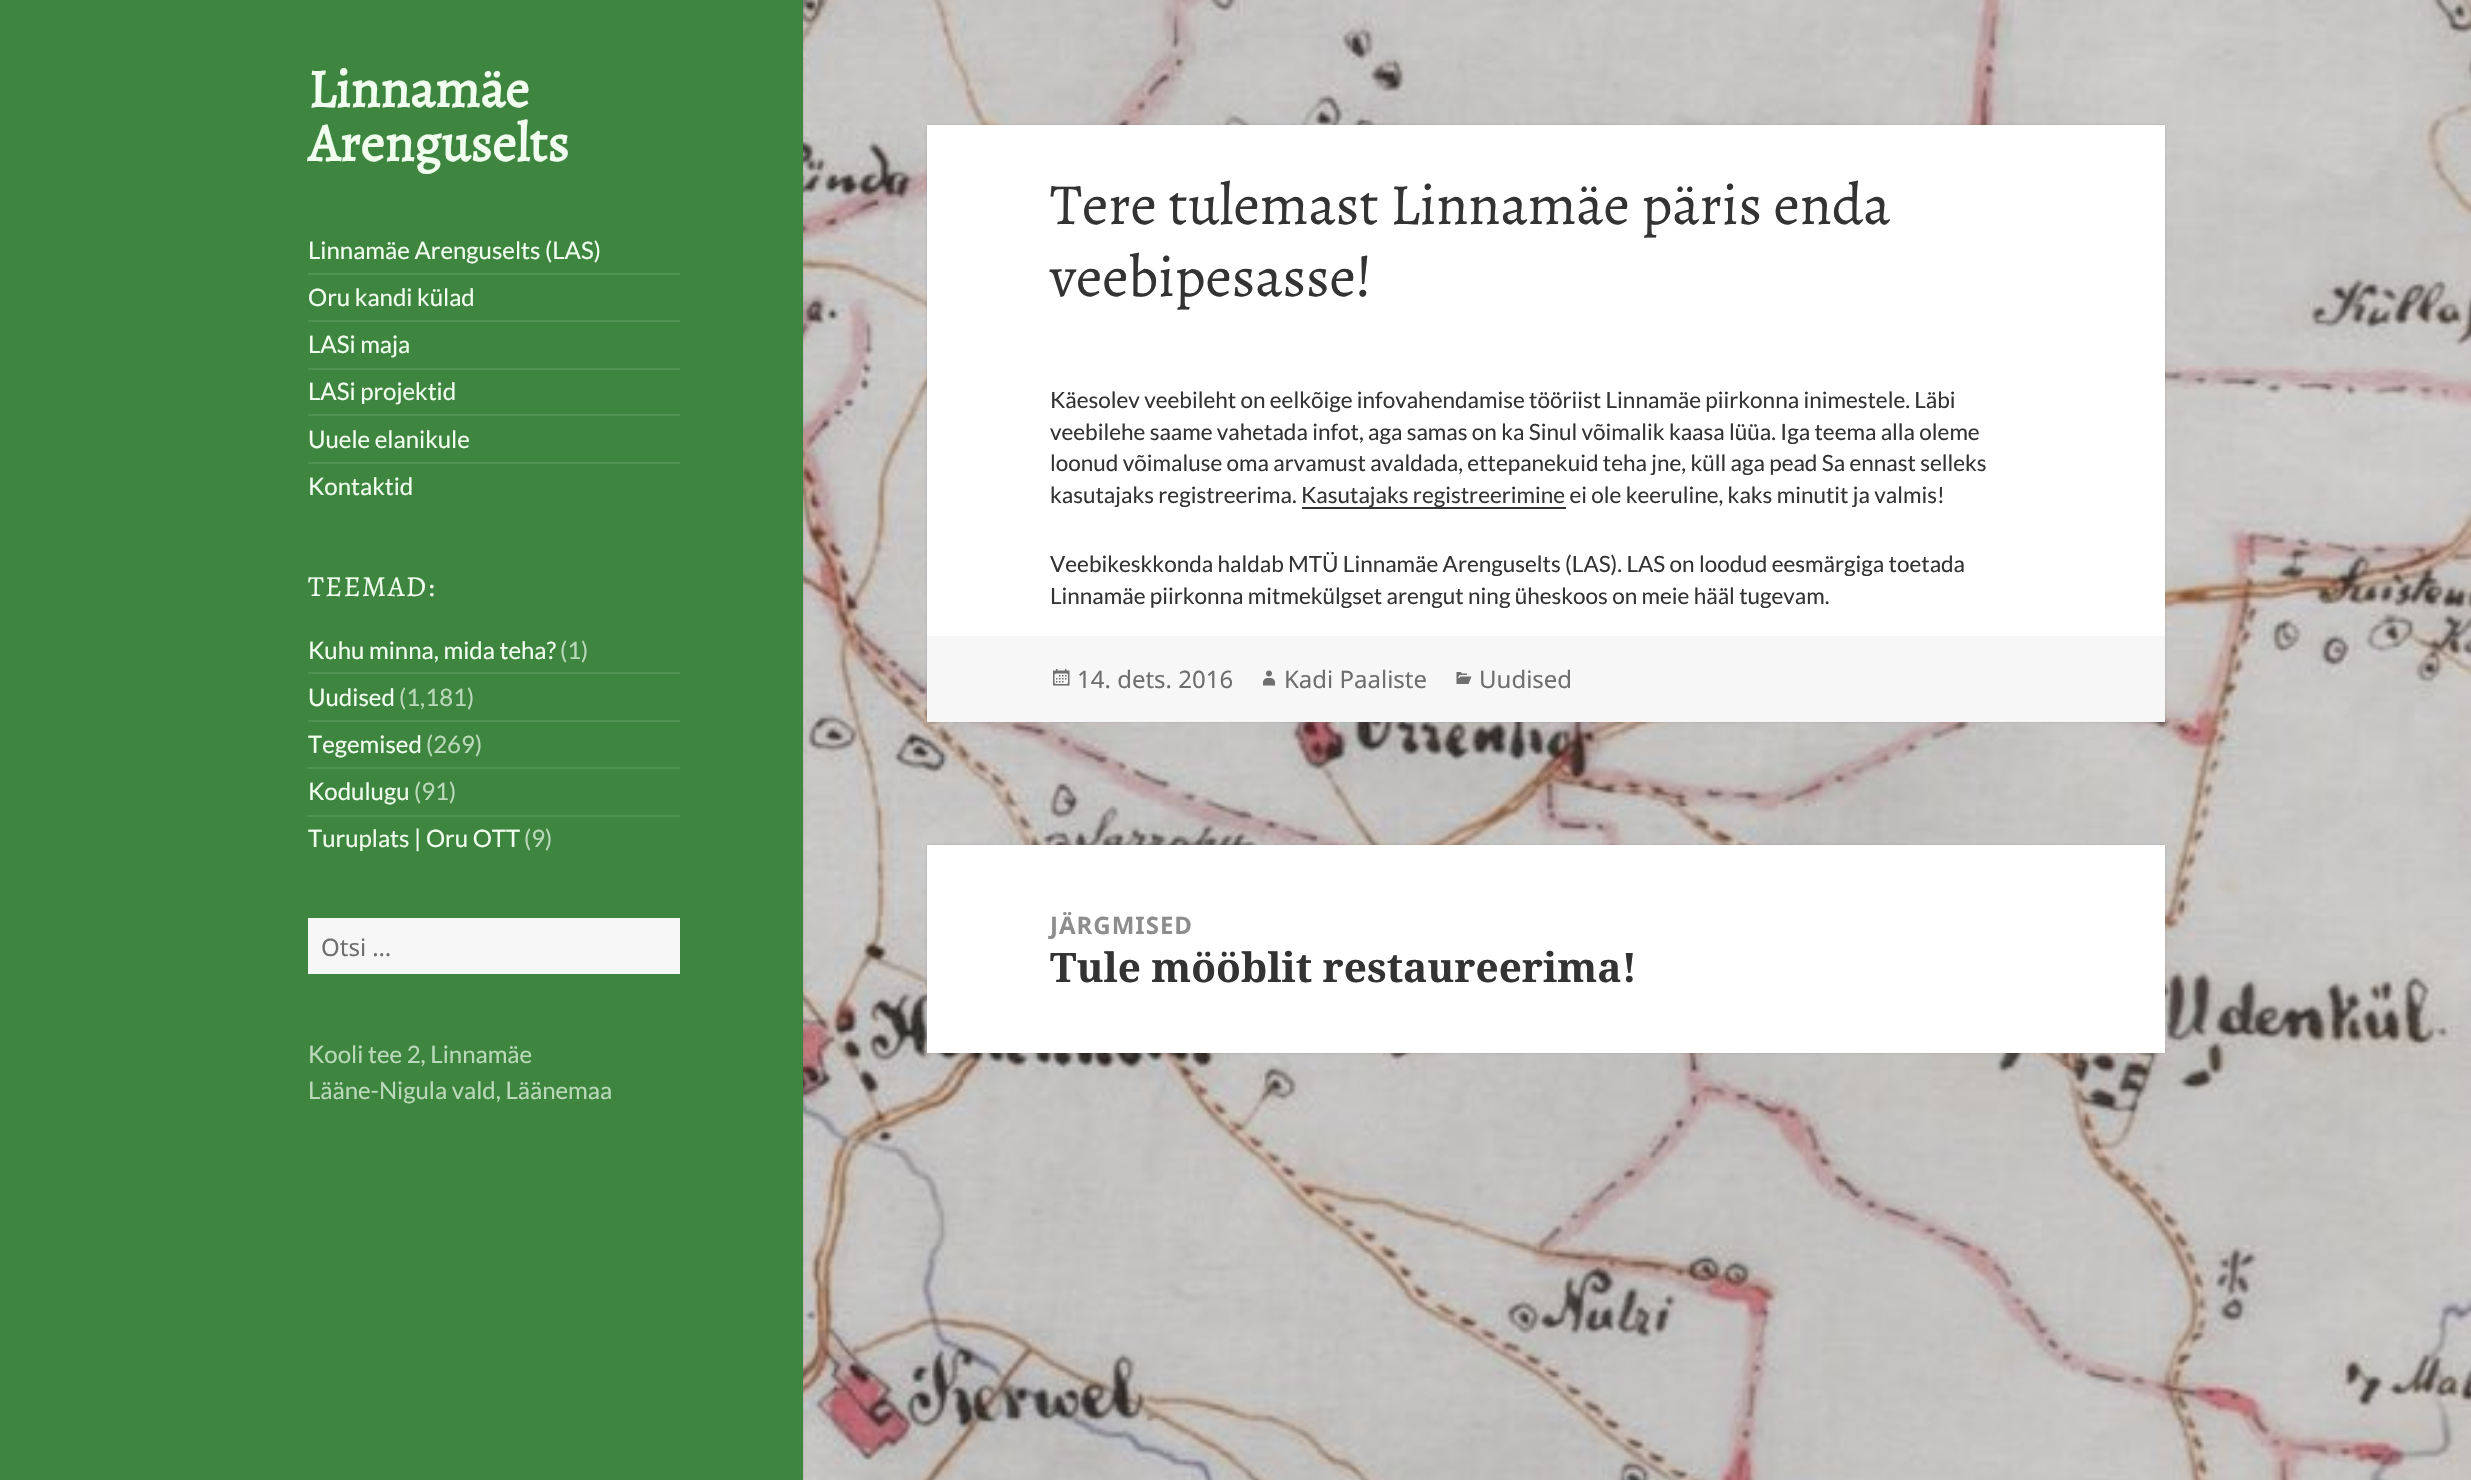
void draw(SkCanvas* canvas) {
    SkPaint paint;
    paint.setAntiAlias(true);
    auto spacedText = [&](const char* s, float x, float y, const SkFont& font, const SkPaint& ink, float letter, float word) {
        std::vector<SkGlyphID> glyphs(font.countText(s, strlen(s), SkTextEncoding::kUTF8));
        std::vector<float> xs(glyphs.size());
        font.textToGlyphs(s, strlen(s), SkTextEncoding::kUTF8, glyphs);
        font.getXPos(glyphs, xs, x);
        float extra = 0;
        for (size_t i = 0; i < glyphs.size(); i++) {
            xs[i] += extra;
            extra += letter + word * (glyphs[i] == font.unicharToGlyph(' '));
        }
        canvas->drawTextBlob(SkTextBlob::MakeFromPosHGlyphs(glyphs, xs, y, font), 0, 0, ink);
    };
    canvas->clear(0xFFFFFFFF);
    canvas->drawImageRect(SkImages::DeferredFromEncodedData(SkData::MakeFromFileName("img1.png")), SkRect::MakeXYWH(803, 0, 1668, 1480), SkSamplingOptions());
    paint.setColor(0x26000000);
    paint.setMaskFilter(SkMaskFilter::MakeBlur(kNormal_SkBlurStyle, 1));
    canvas->drawRect(SkRect::MakeXYWH(0, 0, 803, 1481), paint);
    paint.setMaskFilter(nullptr);
    paint.setColor(0xFF3E863F);
    canvas->drawRect(SkRect::MakeXYWH(0, 0, 803, 1480), paint);
    SkFont font1(fontMgr->matchFamilyStyle("Alegreya", SkFontStyle::Bold()), 54);
    font1.setSubpixel(true);
    paint.setColor(0xFFF1FDEF);
    canvas->drawString("Linnamäe", 308, 107, font1, paint);
    canvas->drawString("Arenguselts", 308, 161, font1, paint);
    SkFont font2(fontMgr->matchFamilyStyle("Lato", SkFontStyle::Normal()), 24);
    font2.setSubpixel(true);
    canvas->drawString("Linnamäe Arenguselts (LAS)", 308, 259, font2, paint);
    paint.setColor(0xFF509251);
    canvas->drawRect(SkRect::MakeXYWH(308, 273, 372, 2), paint);
    paint.setColor(0xFFF1FDEF);
    canvas->drawString("Oru kandi külad", 308, 306, font2, paint);
    paint.setColor(0xFF509251);
    canvas->drawRect(SkRect::MakeXYWH(308, 320, 372, 2), paint);
    paint.setColor(0xFFF1FDEF);
    canvas->drawString("LASi maja", 308, 353, font2, paint);
    paint.setColor(0xFF509251);
    canvas->drawRect(SkRect::MakeXYWH(308, 368, 372, 2), paint);
    paint.setColor(0xFFF1FDEF);
    canvas->drawString("LASi projektid", 308, 400, font2, paint);
    paint.setColor(0xFF509251);
    canvas->drawRect(SkRect::MakeXYWH(308, 414, 372, 2), paint);
    paint.setColor(0xFFF1FDEF);
    canvas->drawString("Uuele elanikule", 308, 448, font2, paint);
    paint.setColor(0xFF509251);
    canvas->drawRect(SkRect::MakeXYWH(308, 462, 372, 2), paint);
    paint.setColor(0xFFF1FDEF);
    canvas->drawString("Kontaktid", 308, 495, font2, paint);
    SkFont font3(fontMgr->matchFamilyStyle("Alegreya", SkFontStyle::Normal()), 29);
    font3.setSubpixel(true);
    spacedText("TEEMAD:", 308, 596, font3, paint, 1.25f, 0);
    canvas->drawString("Kuhu minna, mida teha?", 308, 659, font2, paint);
    paint.setColor(0xFFBBD9BA);
    canvas->drawString("(1)", 560, 659, font2, paint);
    paint.setColor(0xFF509251);
    canvas->drawRect(SkRect::MakeXYWH(308, 672, 372, 2), paint);
    paint.setColor(0xFFF1FDEF);
    canvas->drawString("Uudised", 308, 706, font2, paint);
    paint.setColor(0xFFBBD9BA);
    canvas->drawString("(1,181)", 399, 706, font2, paint);
    paint.setColor(0xFF509251);
    canvas->drawRect(SkRect::MakeXYWH(308, 720, 372, 2), paint);
    paint.setColor(0xFFF1FDEF);
    canvas->drawString("Tegemised", 308, 753, font2, paint);
    paint.setColor(0xFFBBD9BA);
    canvas->drawString("(269)", 426, 753, font2, paint);
    paint.setColor(0xFF509251);
    canvas->drawRect(SkRect::MakeXYWH(308, 767, 372, 2), paint);
    paint.setColor(0xFFF1FDEF);
    canvas->drawString("Kodulugu", 308, 800, font2, paint);
    paint.setColor(0xFFBBD9BA);
    canvas->drawString("(91)", 414, 800, font2, paint);
    paint.setColor(0xFF509251);
    canvas->drawRect(SkRect::MakeXYWH(308, 815, 372, 2), paint);
    paint.setColor(0xFFF1FDEF);
    canvas->drawString("Turuplats | Oru OTT", 308, 847, font2, paint);
    paint.setColor(0xFFBBD9BA);
    canvas->drawString("(9)", 524, 847, font2, paint);
    paint.setColor(0xFFF7F7F7);
    canvas->drawRect(SkRect::MakeXYWH(308, 918, 372, 56), paint);
    SkFont font4(fontMgr->matchFamilyStyle("Noto Sans", SkFontStyle::Normal()), 24);
    font4.setSubpixel(true);
    paint.setColor(0xFF6E6E6E);
    canvas->drawString("Otsi …", 321, 956, font4, paint);
    paint.setColor(0xFFBBD9BA);
    canvas->drawString("Kooli tee 2, Linnamäe", 308, 1063, font2, paint);
    canvas->drawString("Lääne-Nigula vald, Läänemaa", 308, 1099, font2, paint);
    paint.setColor(0x26000000);
    paint.setMaskFilter(SkMaskFilter::MakeBlur(kNormal_SkBlurStyle, 1));
    canvas->drawRect(SkRect::MakeXYWH(927, 125, 1238, 597), paint);
    paint.setMaskFilter(nullptr);
    paint.setColor(0xFFFFFFFF);
    canvas->drawRect(SkRect::MakeXYWH(927, 125, 1238, 511), paint);
    SkFont font5(fontMgr->matchFamilyStyle("Alegreya", SkFontStyle::Normal()), 58.5f);
    font5.setSubpixel(true);
    paint.setColor(0xFF333333);
    canvas->drawString("Tere tulemast Linnamäe päris enda", 1050, 224, font5, paint);
    canvas->drawString("veebipesasse!", 1050, 296, font5, paint);
    SkFont font6(fontMgr->matchFamilyStyle("Lato", SkFontStyle::Normal()), 22.5f);
    font6.setSubpixel(true);
    canvas->drawString("Käesolev veebileht on eelkõige infovahendamise tööriist Linnamäe piirkonna inimestele. Läbi", 1050, 408, font6, paint);
    canvas->drawString("veebilehe saame vahetada infot, aga samas on ka Sinul võimalik kaasa lüüa. Iga teema alla oleme", 1050, 440, font6, paint);
    canvas->drawString("loonud võimaluse oma arvamust avaldada, ettepanekuid teha jne, küll aga pead Sa ennast selleks", 1050, 471, font6, paint);
    canvas->drawString("kasutajaks registreerima.", 1050, 503, font6, paint);
    canvas->drawRect(SkRect::MakeXYWH(1302, 507, 264, 2), paint);
    canvas->drawString("Kasutajaks registreerimine ei ole keeruline, kaks minutit ja valmis!", 1301, 503, font6, paint);
    canvas->drawString("Veebikeskkonda haldab MTÜ Linnamäe Arenguselts (LAS). LAS on loodud eesmärgiga toetada", 1050, 572, font6, paint);
    canvas->drawString("Linnamäe piirkonna mitmekülgset arengut ning üheskoos on meie hääl tugevam.", 1050, 604, font6, paint);
    paint.setColor(0xFFF7F7F7);
    canvas->drawRect(SkRect::MakeXYWH(927, 636, 1238, 86), paint);
    canvas->drawImageRect(SkImages::DeferredFromEncodedData(SkData::MakeFromFileName("img2.png")), SkRect::MakeXYWH(1053, 669, 17, 17), SkSamplingOptions());
    paint.setColor(0xFF6E6E6E);
    canvas->drawString("14. dets. 2016", 1077, 688, font4, paint);
    canvas->drawImageRect(SkImages::DeferredFromEncodedData(SkData::MakeFromFileName("img3.png")), SkRect::MakeXYWH(1263, 670, 12, 16), SkSamplingOptions());
    canvas->drawString("Kadi Paaliste", 1284, 688, font4, paint);
    canvas->drawImageRect(SkImages::DeferredFromEncodedData(SkData::MakeFromFileName("img4.png")), SkRect::MakeXYWH(1456, 672, 16, 12), SkSamplingOptions());
    canvas->drawString("Uudised", 1479, 688, font4, paint);
    paint.setColor(0x26000000);
    paint.setMaskFilter(SkMaskFilter::MakeBlur(kNormal_SkBlurStyle, 1));
    canvas->drawRect(SkRect::MakeXYWH(927, 845, 1238, 208), paint);
    paint.setMaskFilter(nullptr);
    paint.setColor(0xFFFFFFFF);
    canvas->drawRect(SkRect::MakeXYWH(927, 845, 1238, 208), paint);
    SkFont font7(fontMgr->matchFamilyStyle("Noto Sans", SkFontStyle::Bold()), 24);
    font7.setSubpixel(true);
    paint.setColor(0xFF8D8D8D);
    spacedText("JÄRGMISED", 1050, 934, font7, paint, 1, 0);
    SkFont font8(fontMgr->matchFamilyStyle("Noto Serif", SkFontStyle::Bold()), 40.5f);
    font8.setSubpixel(true);
    paint.setColor(0xFF333333);
    canvas->drawString("Tule mööblit restaureerima!", 1050, 982, font8, paint);
}
